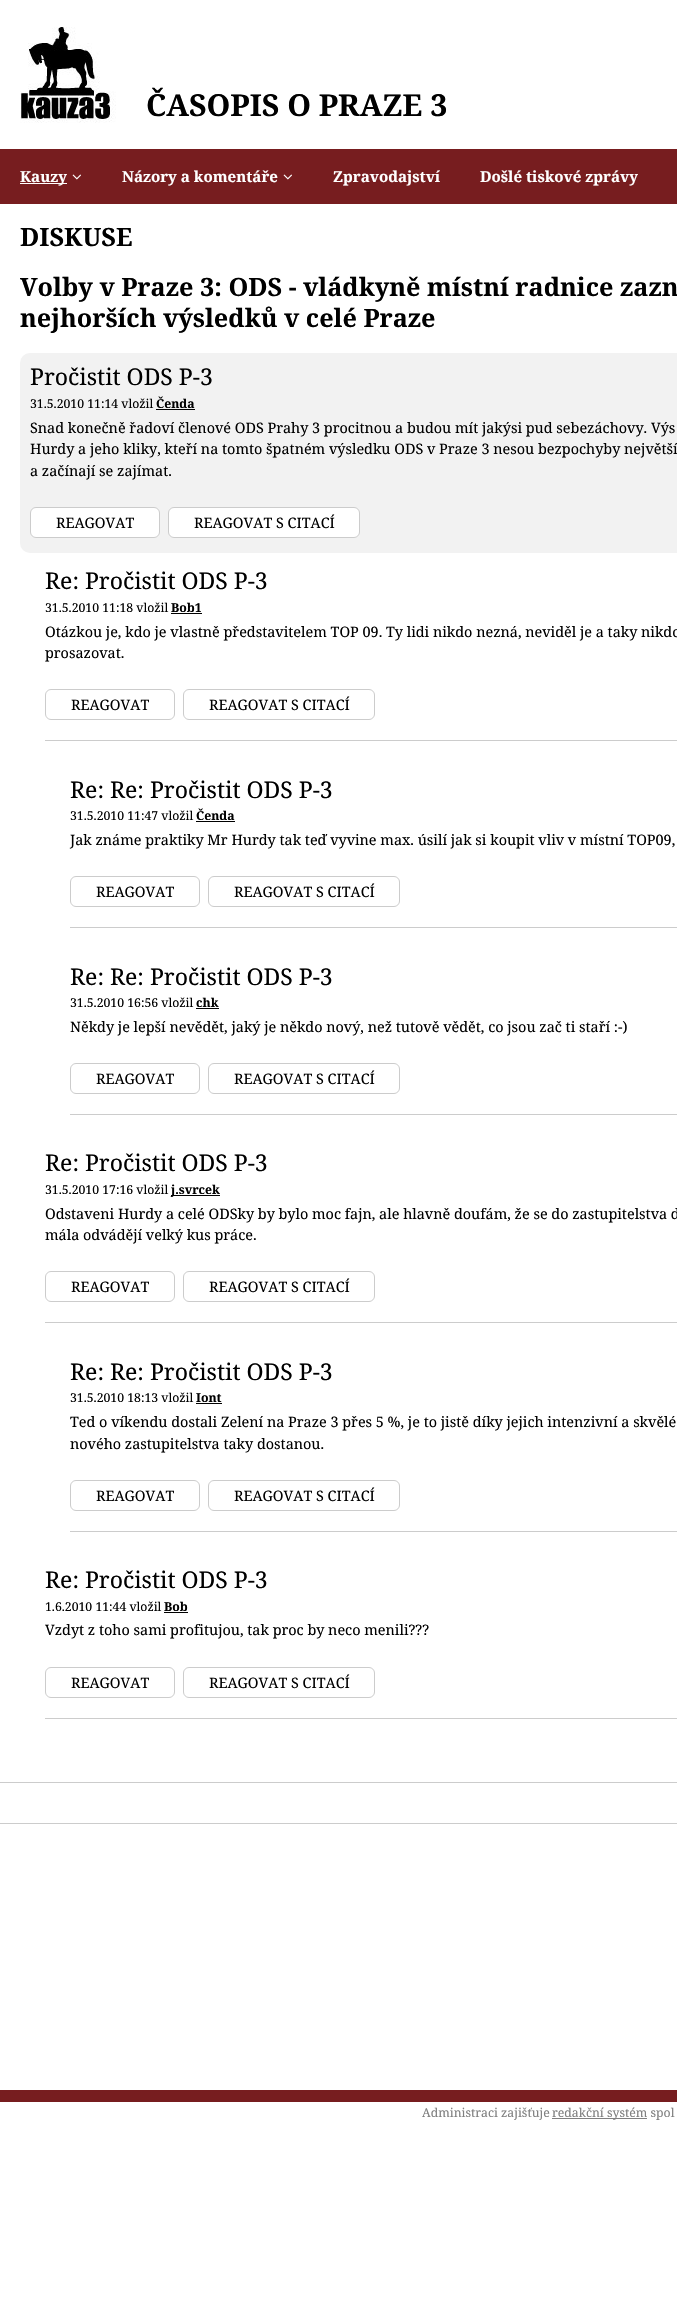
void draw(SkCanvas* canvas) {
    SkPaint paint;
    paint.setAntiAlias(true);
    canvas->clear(0xFFFFFFFF);
    canvas->drawImageRect(SkImages::DeferredFromEncodedData(SkData::MakeFromFileName("img1.png")), SkRect::MakeXYWH(20, 27, 96, 96), SkSamplingOptions());
    SkFont font1(fontMgr->matchFamilyStyle("Noto Serif", SkFontStyle::Bold()), 30.25f);
    font1.setSubpixel(true);
    paint.setColor(0xFF000000);
    canvas->drawString("ČASOPIS O PRAZE 3", 146, 116, font1, paint);
    paint.setColor(0xFF771D1F);
    canvas->drawRect(SkRect::MakeXYWH(0, 149, 677, 55), paint);
    paint.setColor(0xFFFFFFFF);
    canvas->drawRect(SkRect::MakeXYWH(20, 183, 47, 1), paint);
    SkFont font2(fontMgr->matchFamilyStyle("Noto Serif", SkFontStyle::Bold()), 15.1f);
    font2.setSubpixel(true);
    canvas->drawString("Kauzy", 20, 182, font2, paint);
    canvas->drawImageRect(SkImages::DeferredFromEncodedData(SkData::MakeFromFileName("img2.png")), SkRect::MakeXYWH(72, 174, 9, 6), SkSamplingOptions());
    canvas->drawString("Názory a komentáře", 122, 182, font2, paint);
    canvas->drawImageRect(SkImages::DeferredFromEncodedData(SkData::MakeFromFileName("img2.png")), SkRect::MakeXYWH(283, 174, 9, 6), SkSamplingOptions());
    canvas->drawString("Zpravodajství", 333, 182, font2, paint);
    canvas->drawString("Došlé tiskové zprávy", 480, 182, font2, paint);
    SkFont font3(fontMgr->matchFamilyStyle("Noto Serif", SkFontStyle::Bold()), 25.2f);
    font3.setSubpixel(true);
    paint.setColor(0xFF000000);
    canvas->drawString("DISKUSE", 20, 246, font3, paint);
    canvas->drawString("Volby v Praze 3: ODS - vládkyně místní radnice zazn", 20, 296, font3, paint);
    canvas->drawString("nejhorších výsledků v celé Praze", 20, 327, font3, paint);
    paint.setColor(0xFFF2F2F2);
    canvas->drawRoundRect(SkRect::MakeXYWH(20, 353, 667, 200), 10, 10, paint);
    SkFont font4(fontMgr->matchFamilyStyle("Noto Serif", SkFontStyle::Normal()), 23);
    font4.setSubpixel(true);
    paint.setColor(0xFF000000);
    canvas->drawString("Pročistit ODS P-3", 30, 385, font4, paint);
    SkFont font5(fontMgr->matchFamilyStyle("Noto Serif", SkFontStyle::Normal()), 12.25f);
    font5.setSubpixel(true);
    canvas->drawString("31.5.2010 11:14 vložil", 30, 408, font5, paint);
    SkFont font6(fontMgr->matchFamilyStyle("Noto Serif", SkFontStyle::Bold()), 12.25f);
    font6.setSubpixel(true);
    canvas->drawString("Čenda", 156, 408, font6, paint);
    canvas->drawRect(SkRect::MakeXYWH(156, 409, 39, 1), paint);
    SkFont font7(fontMgr->matchFamilyStyle("Noto Serif", SkFontStyle::Normal()), 14.4f);
    font7.setSubpixel(true);
    canvas->drawString("Snad konečně řadoví členové ODS Prahy 3 procitnou a budou mít jakýsi pud sebezáchovy. Výs", 30, 433, font7, paint);
    canvas->drawString("Hurdy a jeho kliky, kteří na tomto špatném výsledku ODS v Praze 3 nesou bezpochyby největší", 30, 454, font7, paint);
    canvas->drawString("a začínají se zajímat.", 30, 476, font7, paint);
    paint.setColor(0xFFFFFFFF);
    canvas->drawRoundRect(SkRect::MakeXYWH(30.5f, 507.5f, 129, 30), 5.5f, 5.5f, paint);
    paint.setStyle(SkPaint::kStroke_Style);
    paint.setStrokeWidth(1);
    paint.setColor(0xFFCCCCCC);
    canvas->drawRoundRect(SkRect::MakeXYWH(30.5f, 507.5f, 129, 30), 5.5f, 5.5f, paint);
    paint.setStyle(SkPaint::kFill_Style);
    paint.setColor(0xFF000000);
    canvas->drawString("REAGOVAT", 56, 528, font7, paint);
    paint.setColor(0xFFFFFFFF);
    canvas->drawRoundRect(SkRect::MakeXYWH(168.5f, 507.5f, 191, 30), 5.5f, 5.5f, paint);
    paint.setStyle(SkPaint::kStroke_Style);
    paint.setColor(0xFFCCCCCC);
    canvas->drawRoundRect(SkRect::MakeXYWH(168.5f, 507.5f, 191, 30), 5.5f, 5.5f, paint);
    paint.setStyle(SkPaint::kFill_Style);
    paint.setColor(0xFF000000);
    canvas->drawString("REAGOVAT S CITACÍ", 194, 528, font7, paint);
    canvas->drawString("Re: Pročistit ODS P-3", 45, 589, font4, paint);
    canvas->drawString("31.5.2010 11:18 vložil", 45, 612, font5, paint);
    canvas->drawString("Bob1", 171, 612, font6, paint);
    canvas->drawRect(SkRect::MakeXYWH(171, 613, 31, 1), paint);
    canvas->drawString("Otázkou je, kdo je vlastně představitelem TOP 09. Ty lidi nikdo nezná, neviděl je a taky nikdo", 45, 637, font7, paint);
    canvas->drawString("prosazovat.", 45, 658, font7, paint);
    paint.setStyle(SkPaint::kStroke_Style);
    paint.setColor(0xFFCCCCCC);
    canvas->drawRoundRect(SkRect::MakeXYWH(45.5f, 689.5f, 129, 30), 5.5f, 5.5f, paint);
    paint.setStyle(SkPaint::kFill_Style);
    paint.setColor(0xFF000000);
    canvas->drawString("REAGOVAT", 71, 710, font7, paint);
    paint.setStyle(SkPaint::kStroke_Style);
    paint.setColor(0xFFCCCCCC);
    canvas->drawRoundRect(SkRect::MakeXYWH(183.5f, 689.5f, 191, 30), 5.5f, 5.5f, paint);
    paint.setStyle(SkPaint::kFill_Style);
    paint.setColor(0xFF000000);
    canvas->drawString("REAGOVAT S CITACÍ", 209, 710, font7, paint);
    paint.setColor(0xFFCCCCCC);
    canvas->drawRect(SkRect::MakeXYWH(45, 740, 632, 1), paint);
    paint.setColor(0xFF000000);
    canvas->drawString("Re: Re: Pročistit ODS P-3", 70, 798, font4, paint);
    canvas->drawString("31.5.2010 11:47 vložil", 70, 820, font5, paint);
    canvas->drawString("Čenda", 196, 820, font6, paint);
    canvas->drawRect(SkRect::MakeXYWH(196, 821, 39, 1), paint);
    canvas->drawString("Jak známe praktiky Mr Hurdy tak teď vyvine max. úsilí jak si koupit vliv v místní TOP09,", 70, 845, font7, paint);
    paint.setStyle(SkPaint::kStroke_Style);
    paint.setColor(0xFFCCCCCC);
    canvas->drawRoundRect(SkRect::MakeXYWH(70.5f, 876.5f, 129, 30), 5.5f, 5.5f, paint);
    paint.setStyle(SkPaint::kFill_Style);
    paint.setColor(0xFF000000);
    canvas->drawString("REAGOVAT", 96, 897, font7, paint);
    paint.setStyle(SkPaint::kStroke_Style);
    paint.setColor(0xFFCCCCCC);
    canvas->drawRoundRect(SkRect::MakeXYWH(208.5f, 876.5f, 191, 30), 5.5f, 5.5f, paint);
    paint.setStyle(SkPaint::kFill_Style);
    paint.setColor(0xFF000000);
    canvas->drawString("REAGOVAT S CITACÍ", 234, 897, font7, paint);
    paint.setColor(0xFFCCCCCC);
    canvas->drawRect(SkRect::MakeXYWH(70, 927, 607, 1), paint);
    paint.setColor(0xFF000000);
    canvas->drawString("Re: Re: Pročistit ODS P-3", 70, 985, font4, paint);
    canvas->drawString("31.5.2010 16:56 vložil", 70, 1007, font5, paint);
    canvas->drawString("chk", 196, 1007, font6, paint);
    canvas->drawRect(SkRect::MakeXYWH(196, 1008, 23, 1), paint);
    canvas->drawString("Někdy je lepší nevědět, jaký je někdo nový, než tutově vědět, co jsou zač ti staří :-)", 70, 1032, font7, paint);
    paint.setStyle(SkPaint::kStroke_Style);
    paint.setColor(0xFFCCCCCC);
    canvas->drawRoundRect(SkRect::MakeXYWH(70.5f, 1063.5f, 129, 30), 5.5f, 5.5f, paint);
    paint.setStyle(SkPaint::kFill_Style);
    paint.setColor(0xFF000000);
    canvas->drawString("REAGOVAT", 96, 1084, font7, paint);
    paint.setStyle(SkPaint::kStroke_Style);
    paint.setColor(0xFFCCCCCC);
    canvas->drawRoundRect(SkRect::MakeXYWH(208.5f, 1063.5f, 191, 30), 5.5f, 5.5f, paint);
    paint.setStyle(SkPaint::kFill_Style);
    paint.setColor(0xFF000000);
    canvas->drawString("REAGOVAT S CITACÍ", 234, 1084, font7, paint);
    paint.setColor(0xFFCCCCCC);
    canvas->drawRect(SkRect::MakeXYWH(70, 1114, 607, 1), paint);
    paint.setColor(0xFF000000);
    canvas->drawString("Re: Pročistit ODS P-3", 45, 1171, font4, paint);
    canvas->drawString("31.5.2010 17:16 vložil", 45, 1194, font5, paint);
    canvas->drawRect(SkRect::MakeXYWH(171, 1195, 49, 1), paint);
    canvas->drawString("j.svrcek", 171, 1194, font6, paint);
    canvas->drawString("Odstaveni Hurdy a celé ODSky by bylo moc fajn, ale hlavně doufám, že se do zastupitelstva d", 45, 1219, font7, paint);
    canvas->drawString("mála odvádějí velký kus práce.", 45, 1240, font7, paint);
    paint.setStyle(SkPaint::kStroke_Style);
    paint.setColor(0xFFCCCCCC);
    canvas->drawRoundRect(SkRect::MakeXYWH(45.5f, 1271.5f, 129, 30), 5.5f, 5.5f, paint);
    paint.setStyle(SkPaint::kFill_Style);
    paint.setColor(0xFF000000);
    canvas->drawString("REAGOVAT", 71, 1292, font7, paint);
    paint.setStyle(SkPaint::kStroke_Style);
    paint.setColor(0xFFCCCCCC);
    canvas->drawRoundRect(SkRect::MakeXYWH(183.5f, 1271.5f, 191, 30), 5.5f, 5.5f, paint);
    paint.setStyle(SkPaint::kFill_Style);
    paint.setColor(0xFF000000);
    canvas->drawString("REAGOVAT S CITACÍ", 209, 1292, font7, paint);
    paint.setColor(0xFFCCCCCC);
    canvas->drawRect(SkRect::MakeXYWH(45, 1322, 632, 1), paint);
    paint.setColor(0xFF000000);
    canvas->drawString("Re: Re: Pročistit ODS P-3", 70, 1380, font4, paint);
    canvas->drawString("31.5.2010 18:13 vložil", 70, 1402, font5, paint);
    canvas->drawString("Iont", 196, 1402, font6, paint);
    canvas->drawRect(SkRect::MakeXYWH(196, 1403, 26, 1), paint);
    canvas->drawString("Ted o víkendu dostali Zelení na Praze 3 přes 5 %, je to jistě díky jejich intenzivní a skvělé", 70, 1427, font7, paint);
    canvas->drawString("nového zastupitelstva taky dostanou.", 70, 1449, font7, paint);
    paint.setStyle(SkPaint::kStroke_Style);
    paint.setColor(0xFFCCCCCC);
    canvas->drawRoundRect(SkRect::MakeXYWH(70.5f, 1480.5f, 129, 30), 5.5f, 5.5f, paint);
    paint.setStyle(SkPaint::kFill_Style);
    paint.setColor(0xFF000000);
    canvas->drawString("REAGOVAT", 96, 1501, font7, paint);
    paint.setStyle(SkPaint::kStroke_Style);
    paint.setColor(0xFFCCCCCC);
    canvas->drawRoundRect(SkRect::MakeXYWH(208.5f, 1480.5f, 191, 30), 5.5f, 5.5f, paint);
    paint.setStyle(SkPaint::kFill_Style);
    paint.setColor(0xFF000000);
    canvas->drawString("REAGOVAT S CITACÍ", 234, 1501, font7, paint);
    paint.setColor(0xFFCCCCCC);
    canvas->drawRect(SkRect::MakeXYWH(70, 1531, 607, 1), paint);
    paint.setColor(0xFF000000);
    canvas->drawString("Re: Pročistit ODS P-3", 45, 1588, font4, paint);
    canvas->drawString("1.6.2010 11:44 vložil", 45, 1611, font5, paint);
    canvas->drawString("Bob", 164, 1611, font6, paint);
    canvas->drawRect(SkRect::MakeXYWH(164, 1612, 24, 1), paint);
    canvas->drawString("Vzdyt z toho sami profitujou, tak proc by neco menili?\077?", 45, 1635, font7, paint);
    paint.setStyle(SkPaint::kStroke_Style);
    paint.setColor(0xFFCCCCCC);
    canvas->drawRoundRect(SkRect::MakeXYWH(45.5f, 1667.5f, 129, 30), 5.5f, 5.5f, paint);
    paint.setStyle(SkPaint::kFill_Style);
    paint.setColor(0xFF000000);
    canvas->drawString("REAGOVAT", 71, 1688, font7, paint);
    paint.setStyle(SkPaint::kStroke_Style);
    paint.setColor(0xFFCCCCCC);
    canvas->drawRoundRect(SkRect::MakeXYWH(183.5f, 1667.5f, 191, 30), 5.5f, 5.5f, paint);
    paint.setStyle(SkPaint::kFill_Style);
    paint.setColor(0xFF000000);
    canvas->drawString("REAGOVAT S CITACÍ", 209, 1688, font7, paint);
    paint.setColor(0xFFCCCCCC);
    canvas->drawRect(SkRect::MakeXYWH(45, 1718, 632, 1), paint);
    canvas->drawRect(SkRect::MakeXYWH(0, 1782, 677, 1), paint);
    canvas->drawRect(SkRect::MakeXYWH(0, 1823, 677, 1), paint);
    paint.setColor(0xFF771D1F);
    canvas->drawRect(SkRect::MakeXYWH(0, 2090, 677, 12), paint);
    paint.setColor(0xFF808080);
    canvas->drawString("Administraci zajišťuje", 422, 2117, font5, paint);
    canvas->drawRect(SkRect::MakeXYWH(552, 2118, 95, 1), paint);
    canvas->drawString("redakční systém spol", 552, 2117, font5, paint);
}
